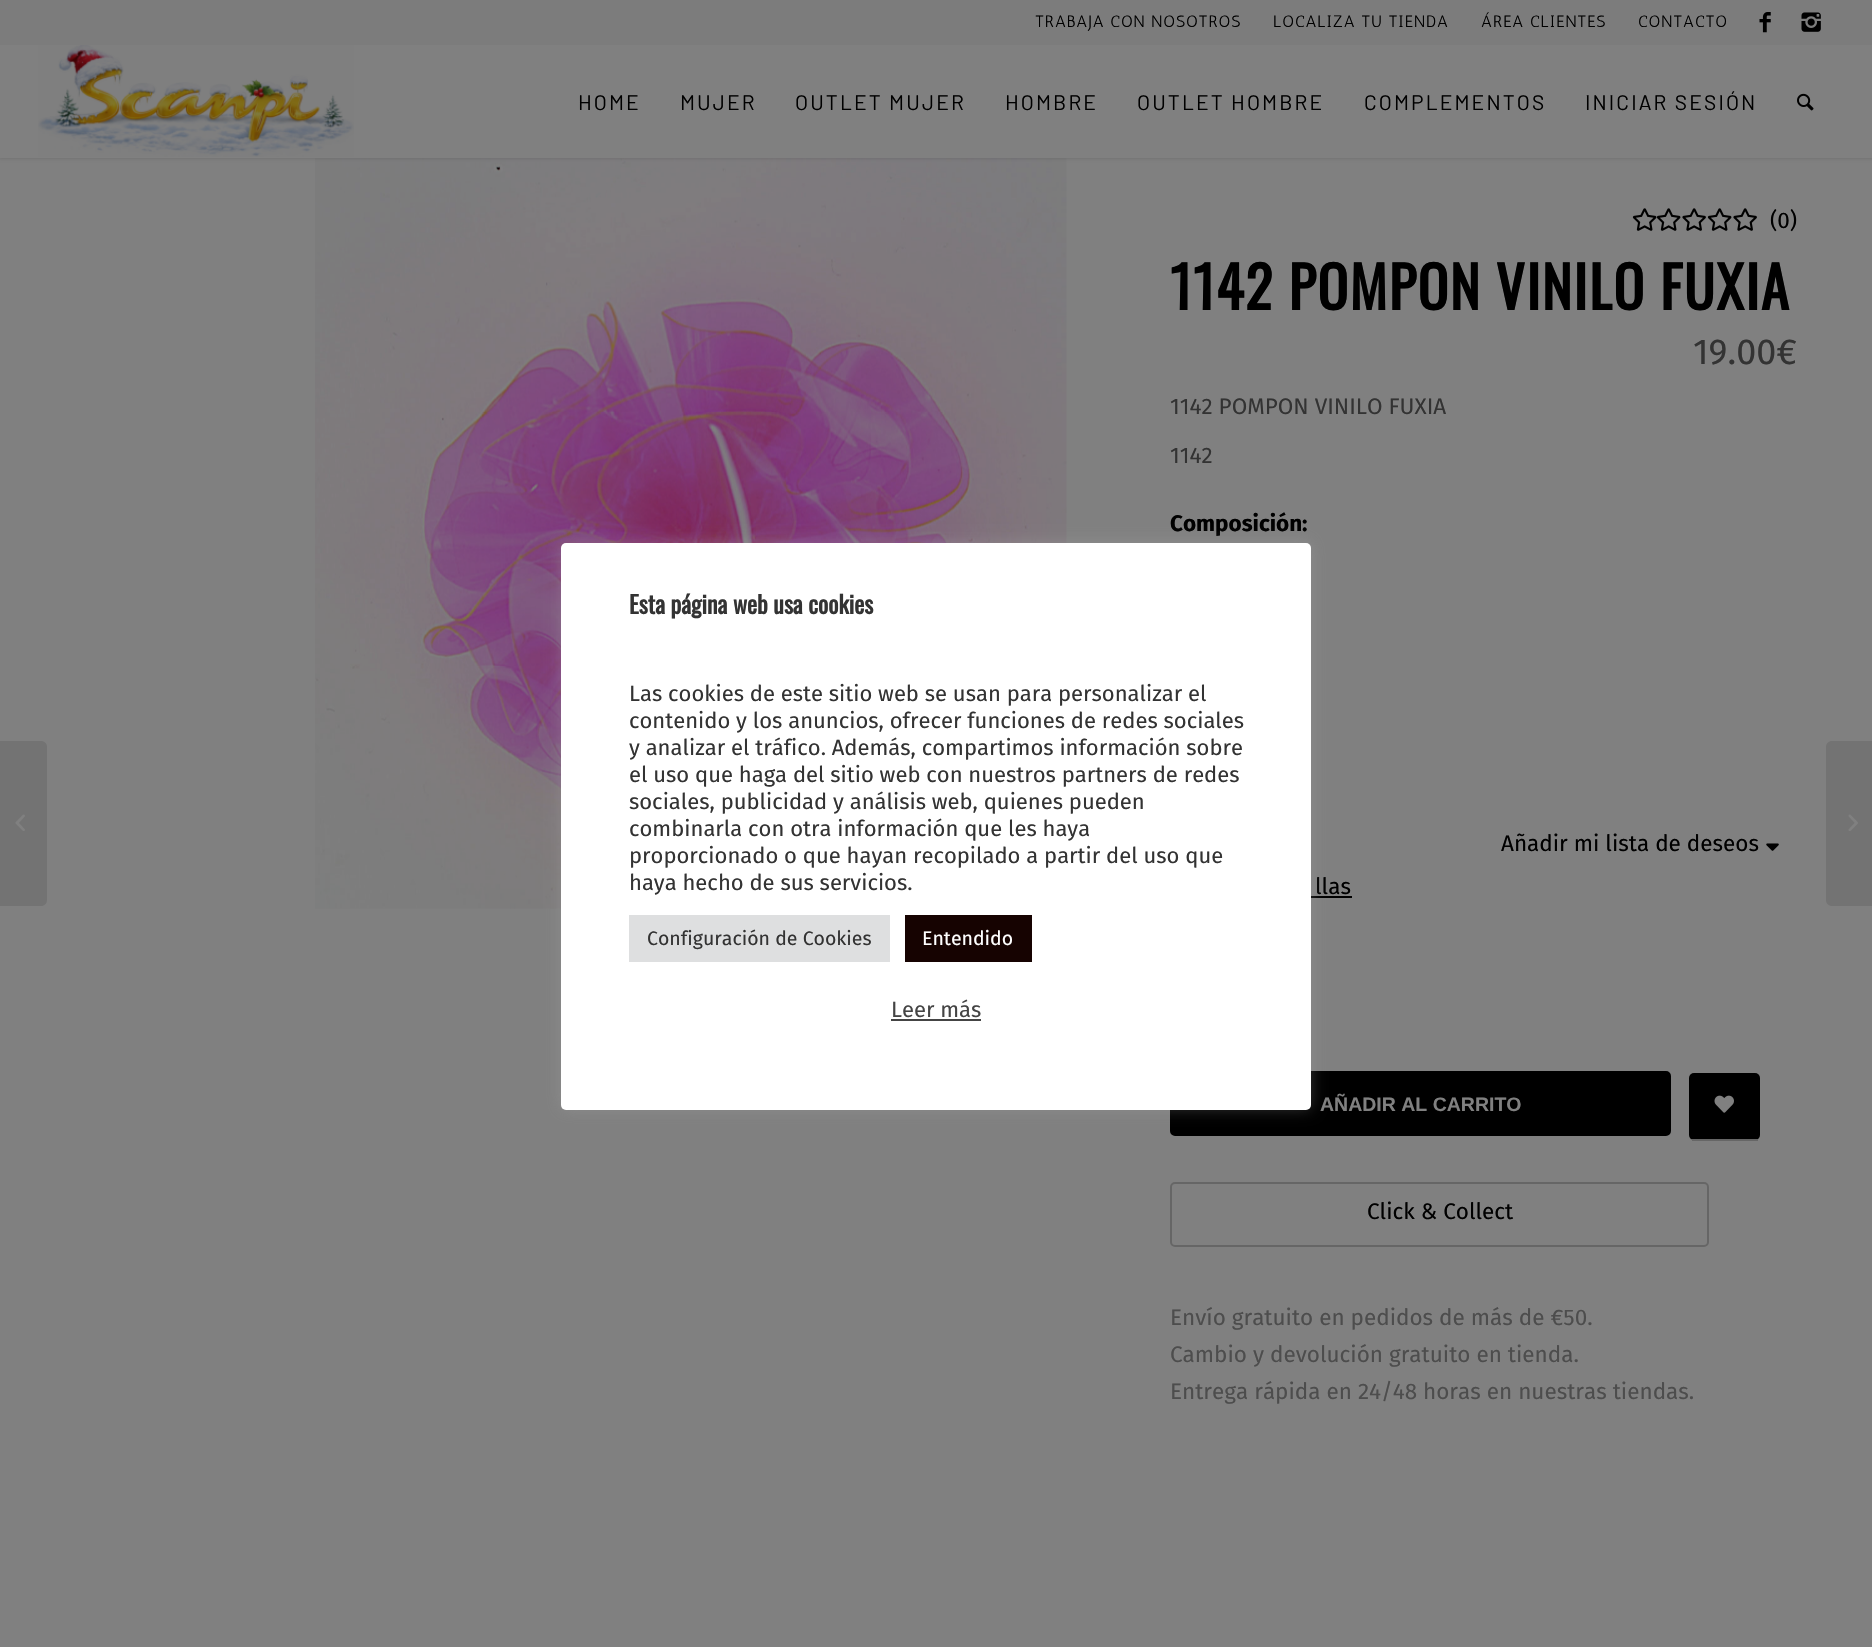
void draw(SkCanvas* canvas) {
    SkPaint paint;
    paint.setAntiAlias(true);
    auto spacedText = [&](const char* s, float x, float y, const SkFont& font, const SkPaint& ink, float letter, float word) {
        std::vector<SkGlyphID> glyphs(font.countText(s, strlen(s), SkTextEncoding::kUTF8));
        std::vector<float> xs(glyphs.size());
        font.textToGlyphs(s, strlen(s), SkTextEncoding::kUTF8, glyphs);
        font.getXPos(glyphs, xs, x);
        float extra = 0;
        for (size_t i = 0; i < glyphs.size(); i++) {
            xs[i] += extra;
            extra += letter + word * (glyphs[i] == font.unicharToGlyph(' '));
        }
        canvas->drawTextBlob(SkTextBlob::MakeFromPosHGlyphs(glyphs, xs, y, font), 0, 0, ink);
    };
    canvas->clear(0xFF808080);
    canvas->drawImageRect(SkImages::DeferredFromEncodedData(SkData::MakeFromFileName("img6.png")), SkRect::MakeXYWH(315, 158, 752, 751), SkSamplingOptions());
    paint.setColor(0x1A000000);
    paint.setMaskFilter(SkMaskFilter::MakeBlur(kNormal_SkBlurStyle, 1.5f));
    canvas->drawRect(SkRect::MakeXYWH(-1, -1, 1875, 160), paint);
    paint.setMaskFilter(nullptr);
    paint.setColor(0xFF7C7C7C);
    canvas->drawRect(SkRect::MakeXYWH(0, 0, 1872, 45), paint);
    SkFont font1(fontMgr->matchFamilyStyle("Antic", SkFontStyle::Normal()), 16.5f);
    font1.setSubpixel(true);
    paint.setColor(0xFF000000);
    spacedText("TRABAJA CON NOSOTROS", 1035, 27, font1, paint, 0.8f, 0);
    spacedText("LOCALIZA TU TIENDA", 1273, 27, font1, paint, 0.8f, 0);
    spacedText("ÁREA CLIENTES", 1481, 27, font1, paint, 0.8f, 0);
    spacedText("CONTACTO", 1638, 27, font1, paint, 0.8f, 0);
    canvas->drawImageRect(SkImages::DeferredFromEncodedData(SkData::MakeFromFileName("img1.png")), SkRect::MakeXYWH(1759, 12, 12, 21), SkSamplingOptions());
    canvas->drawImageRect(SkImages::DeferredFromEncodedData(SkData::MakeFromFileName("img2.png")), SkRect::MakeXYWH(1801, 12, 20, 20), SkSamplingOptions());
    paint.setColor(0xFF808080);
    canvas->drawRect(SkRect::MakeXYWH(0, 45, 1872, 113), paint);
    canvas->drawImageRect(SkImages::DeferredFromEncodedData(SkData::MakeFromFileName("img3.png")), SkRect::MakeXYWH(38, 45, 316, 112), SkSamplingOptions());
    SkFont font2(fontMgr->matchFamilyStyle("Barlow", SkFontStyle::Normal()), 21);
    font2.setSubpixel(true);
    paint.setColor(0xFF000000);
    spacedText("HOME", 578, 110, font2, paint, 2.1f, 0);
    spacedText("MUJER", 680, 110, font2, paint, 2.1f, 0);
    spacedText("OUTLET MUJER", 795, 110, font2, paint, 2.1f, 0);
    spacedText("HOMBRE", 1005, 110, font2, paint, 2.1f, 0);
    spacedText("OUTLET HOMBRE", 1137, 110, font2, paint, 2.1f, 0);
    spacedText("COMPLEMENTOS", 1364, 110, font2, paint, 2.1f, 0);
    spacedText("INICIAR SESIÓN", 1585, 110, font2, paint, 2.1f, 0);
    canvas->drawImageRect(SkImages::DeferredFromEncodedData(SkData::MakeFromFileName("img4.png")), SkRect::MakeXYWH(1797, 93, 17, 18), SkSamplingOptions());
    paint.setColor(0xFF737373);
    canvas->drawPath(SkPathBuilder().moveTo(0, 741).lineTo(41, 741).cubicTo(44.5f, 741, 47, 743.5f, 47, 747).lineTo(47, 900).cubicTo(47, 903.5f, 44.5f, 906, 41, 906).lineTo(0, 906).close().detach(), paint);
    canvas->drawImageRect(SkImages::DeferredFromEncodedData(SkData::MakeFromFileName("img5.png")), SkRect::MakeXYWH(15, 814, 10, 17), SkSamplingOptions());
    canvas->drawImageRect(SkImages::DeferredFromEncodedData(SkData::MakeFromFileName("img7.png")), SkRect::MakeXYWH(1632, 208, 25, 23), SkSamplingOptions());
    canvas->drawImageRect(SkImages::DeferredFromEncodedData(SkData::MakeFromFileName("img8.png")), SkRect::MakeXYWH(1656, 208, 25, 23), SkSamplingOptions());
    canvas->drawImageRect(SkImages::DeferredFromEncodedData(SkData::MakeFromFileName("img9.png")), SkRect::MakeXYWH(1682, 208, 24, 23), SkSamplingOptions());
    canvas->drawImageRect(SkImages::DeferredFromEncodedData(SkData::MakeFromFileName("img7.png")), SkRect::MakeXYWH(1707, 208, 25, 23), SkSamplingOptions());
    canvas->drawImageRect(SkImages::DeferredFromEncodedData(SkData::MakeFromFileName("img9.png")), SkRect::MakeXYWH(1733, 208, 24, 23), SkSamplingOptions());
    SkFont font3(fontMgr->matchFamilyStyle("Fira Sans", SkFontStyle::Normal()), 22.5f);
    font3.setSubpixel(true);
    paint.setColor(0xFF000000);
    canvas->drawString("(0)", 1770, 228, font3, paint);
    SkFont font4(fontMgr->matchFamilyStyle("Oswald", SkFontStyle::Bold()), 57);
    font4.setSubpixel(true);
    spacedText("1142 POMPON VINILO FUXIA", 1170, 310, font4, paint, 1.5f, 0);
    SkFont font5(fontMgr->matchFamilyStyle("Fira Sans", SkFontStyle::Normal()), 36);
    font5.setSubpixel(true);
    paint.setColor(0xFF333333);
    canvas->drawString("19.00€", 1693, 364, font5, paint);
    canvas->drawString("1142 POMPON VINILO FUXIA", 1170, 414, font3, paint);
    canvas->drawString("1142", 1170, 463, font3, paint);
    SkFont font6(fontMgr->matchFamilyStyle("Fira Sans", SkFontStyle::Bold()), 22.5f);
    font6.setSubpixel(true);
    paint.setColor(0xFF000000);
    canvas->drawString("Composición:", 1170, 531, font6, paint);
    canvas->drawString("Añadir mi lista de deseos", 1501, 851, font3, paint);
    canvas->drawImageRect(SkImages::DeferredFromEncodedData(SkData::MakeFromFileName("img10.png")), SkRect::MakeXYWH(1766, 843, 13, 8), SkSamplingOptions());
    canvas->drawString("llas", 1315, 894, font3, paint);
    canvas->drawRect(SkRect::MakeXYWH(1311, 896, 41, 2), paint);
    canvas->drawRoundRect(SkRect::MakeXYWH(1171, 1072, 499, 63), 4, 4, paint);
    paint.setStyle(SkPaint::kStroke_Style);
    paint.setStrokeWidth(2);
    canvas->drawRoundRect(SkRect::MakeXYWH(1171, 1072, 499, 63), 4, 4, paint);
    SkFont font7(fontMgr->matchFamilyStyle("Liberation Sans", SkFontStyle::Bold()), 19.5f);
    font7.setSubpixel(true);
    paint.setStyle(SkPaint::kFill_Style);
    paint.setColor(0xFF808080);
    canvas->drawString("AÑADIR AL CARRITO", 1320, 1111, font7, paint);
    paint.setColor(0xFF000000);
    canvas->drawRoundRect(SkRect::MakeXYWH(1689, 1073, 71, 67), 5, 5, paint);
    paint.setColor(0xFF666666);
    canvas->drawRect(SkRect::MakeXYWH(1692, 1139, 66, 2), paint);
    canvas->drawImageRect(SkImages::DeferredFromEncodedData(SkData::MakeFromFileName("img11.png")), SkRect::MakeXYWH(1714, 1095, 20, 18), SkSamplingOptions());
    paint.setStyle(SkPaint::kStroke_Style);
    canvas->drawRoundRect(SkRect::MakeXYWH(1171, 1183, 537, 63), 4, 4, paint);
    paint.setStyle(SkPaint::kFill_Style);
    paint.setColor(0xFF000000);
    canvas->drawString("Click & Collect", 1367, 1219, font3, paint);
    paint.setColor(0xFF4D4D4D);
    canvas->drawString("Envío gratuito en pedidos de más de €50.", 1170, 1325, font3, paint);
    canvas->drawString("Cambio y devolución gratuito en tienda.", 1170, 1362, font3, paint);
    canvas->drawString("Entrega rápida en 24/48 horas en nuestras tiendas.", 1170, 1399, font3, paint);
    paint.setColor(0xFF737373);
    canvas->drawPath(SkPathBuilder().moveTo(1832, 741).lineTo(1872, 741).lineTo(1872, 906).lineTo(1832, 906).cubicTo(1828.5f, 906, 1826, 903.5f, 1826, 900).lineTo(1826, 747).cubicTo(1826, 743.5f, 1828.5f, 741, 1832, 741).close().detach(), paint);
    canvas->drawImageRect(SkImages::DeferredFromEncodedData(SkData::MakeFromFileName("img12.png")), SkRect::MakeXYWH(1848, 814, 10, 17), SkSamplingOptions());
    paint.setColor(0x4DACABAB);
    paint.setMaskFilter(SkMaskFilter::MakeBlur(kNormal_SkBlurStyle, 7.5f));
    canvas->drawRoundRect(SkRect::MakeXYWH(561, 542, 750, 567), 5, 5, paint);
    paint.setMaskFilter(nullptr);
    paint.setColor(0xFFFFFFFF);
    canvas->drawRoundRect(SkRect::MakeXYWH(561, 543, 750, 567), 5, 5, paint);
    SkFont font8(fontMgr->matchFamilyStyle("Oswald", SkFontStyle::Bold()), 24);
    font8.setSubpixel(true);
    paint.setColor(0xFF333333);
    canvas->drawString("Esta página web usa cookies", 629, 614, font8, paint);
    SkFont font9(fontMgr->matchFamilyStyle("Fira Sans", SkFontStyle::Normal()), 22);
    font9.setSubpixel(true);
    canvas->drawString("Las cookies de este sitio web se usan para personalizar el", 629, 701, font9, paint);
    canvas->drawString("contenido y los anuncios, ofrecer funciones de redes sociales", 629, 728, font9, paint);
    canvas->drawString("y analizar el tráfico. Además, compartimos información sobre", 629, 755, font9, paint);
    canvas->drawString("el uso que haga del sitio web con nuestros partners de redes", 629, 782, font9, paint);
    canvas->drawString("sociales, publicidad y análisis web, quienes pueden", 629, 809, font9, paint);
    canvas->drawString("combinarla con otra información que les haya", 629, 836, font9, paint);
    canvas->drawString("proporcionado o que hayan recopilado a partir del uso que", 629, 863, font9, paint);
    canvas->drawString("haya hecho de sus servicios.", 629, 890, font9, paint);
    paint.setColor(0xFFDEDFE0);
    canvas->drawRect(SkRect::MakeXYWH(629, 915, 261, 47), paint);
    SkFont font10(fontMgr->matchFamilyStyle("Fira Sans", SkFontStyle::Normal()), 19.5f);
    font10.setSubpixel(true);
    paint.setColor(0xFF333333);
    canvas->drawString("Configuración de Cookies", 647, 945, font10, paint);
    paint.setColor(0xFF160301);
    canvas->drawRect(SkRect::MakeXYWH(905, 915, 127, 47), paint);
    paint.setColor(0xFFFFFFFF);
    canvas->drawString("Entendido", 922, 945, font10, paint);
    paint.setColor(0xFF444444);
    canvas->drawString("Leer más", 891, 1017, font9, paint);
    canvas->drawRect(SkRect::MakeXYWH(891, 1019, 90, 2), paint);
}
